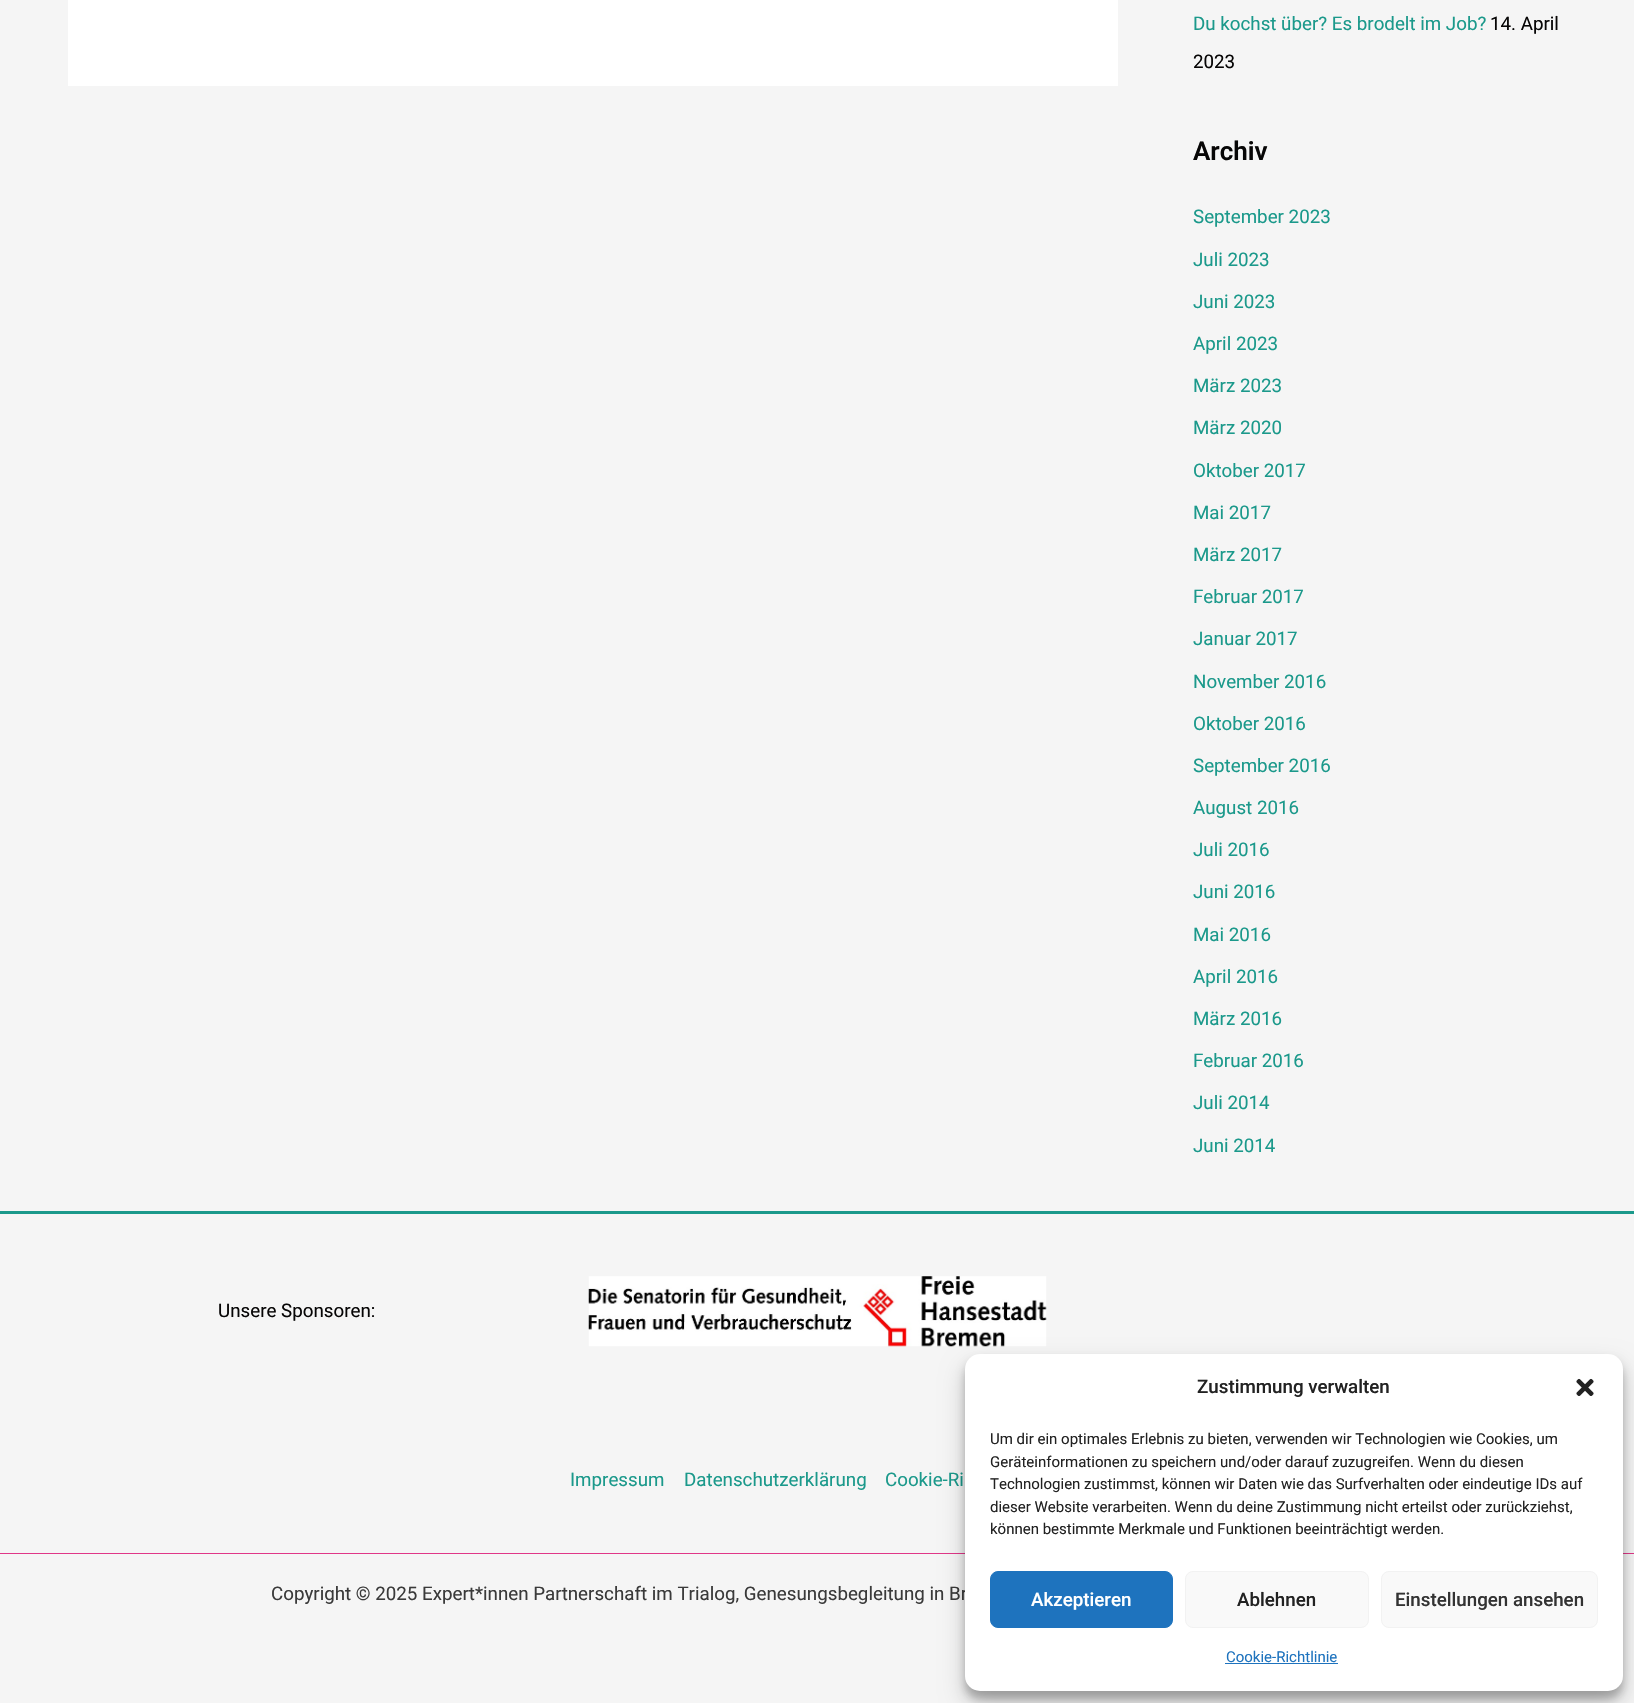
void draw(SkCanvas* canvas) {
    SkPaint paint;
    paint.setAntiAlias(true);
    canvas->clear(0xFFF5F5F5);
    paint.setColor(0xFFFFFFFF);
    canvas->drawRect(SkRect::MakeXYWH(68, 0, 1050, 86), paint);
    SkFont font1(fontMgr->matchFamilyStyle("Roboto", SkFontStyle::Normal()), 18.75f);
    font1.setSubpixel(true);
    paint.setColor(0xFF1B998B);
    canvas->drawString("Du kochst über? Es brodelt im Job?", 1193, 30, font1, paint);
    paint.setColor(0xFF070606);
    canvas->drawString("14. April", 1490, 30, font1, paint);
    canvas->drawString("2023", 1193, 68, font1, paint);
    SkFont font2(fontMgr->matchFamilyStyle("Roboto", SkFontStyle(600, SkFontStyle::kNormal_Width, SkFontStyle::kUpright_Slant)), 26);
    font2.setSubpixel(true);
    canvas->drawString("Archiv", 1193, 160, font2, paint);
    paint.setColor(0xFF1B998B);
    canvas->drawString("September 2023", 1193, 223, font1, paint);
    canvas->drawString("Juli 2023", 1193, 266, font1, paint);
    canvas->drawString("Juni 2023", 1193, 308, font1, paint);
    canvas->drawString("April 2023", 1193, 350, font1, paint);
    canvas->drawString("März 2023", 1193, 392, font1, paint);
    canvas->drawString("März 2020", 1193, 434, font1, paint);
    canvas->drawString("Oktober 2017", 1193, 477, font1, paint);
    canvas->drawString("Mai 2017", 1193, 519, font1, paint);
    canvas->drawString("März 2017", 1193, 561, font1, paint);
    canvas->drawString("Februar 2017", 1193, 603, font1, paint);
    canvas->drawString("Januar 2017", 1193, 645, font1, paint);
    canvas->drawString("November 2016", 1193, 688, font1, paint);
    canvas->drawString("Oktober 2016", 1193, 730, font1, paint);
    canvas->drawString("September 2016", 1193, 772, font1, paint);
    canvas->drawString("August 2016", 1193, 814, font1, paint);
    canvas->drawString("Juli 2016", 1193, 856, font1, paint);
    canvas->drawString("Juni 2016", 1193, 898, font1, paint);
    canvas->drawString("Mai 2016", 1193, 941, font1, paint);
    canvas->drawString("April 2016", 1193, 983, font1, paint);
    canvas->drawString("März 2016", 1193, 1025, font1, paint);
    canvas->drawString("Februar 2016", 1193, 1067, font1, paint);
    canvas->drawString("Juli 2014", 1193, 1109, font1, paint);
    canvas->drawString("Juni 2014", 1193, 1152, font1, paint);
    canvas->drawRect(SkRect::MakeXYWH(0, 1211, 1634, 3), paint);
    paint.setColor(0xFF070606);
    canvas->drawString("Unsere Sponsoren:", 218, 1317, font1, paint);
    canvas->drawImageRect(SkImages::DeferredFromEncodedData(SkData::MakeFromFileName("img1.png")), SkRect::MakeXYWH(588, 1276, 459, 71), SkSamplingOptions());
    paint.setColor(0xFF1B998B);
    canvas->drawString("Impressum", 570, 1486, font1, paint);
    canvas->drawString("Datenschutzerklärung", 684, 1486, font1, paint);
    canvas->drawString("Cookie-Ri", 885, 1486, font1, paint);
    paint.setColor(0xFFE03788);
    canvas->drawRect(SkRect::MakeXYWH(0, 1553, 1634, 1), paint);
    paint.setColor(0xFF3A3A3A);
    canvas->drawString("Copyright © 2025 Expert*innen Partnerschaft im Trialog, Genesungsbegleitung in Br", 271, 1600, font1, paint);
    paint.setColor(0x3B000000);
    paint.setMaskFilter(SkMaskFilter::MakeBlur(kNormal_SkBlurStyle, 4));
    canvas->drawRoundRect(SkRect::MakeXYWH(965, 1361, 658, 338), 15, 15, paint);
    paint.setMaskFilter(nullptr);
    paint.setColor(0x30000000);
    paint.setMaskFilter(SkMaskFilter::MakeBlur(kNormal_SkBlurStyle, 12.5f));
    canvas->drawRoundRect(SkRect::MakeXYWH(965, 1366, 658, 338), 15, 15, paint);
    paint.setMaskFilter(nullptr);
    paint.setColor(0xFFFFFFFF);
    canvas->drawRoundRect(SkRect::MakeXYWH(965, 1354, 658, 337), 15, 15, paint);
    SkFont font3(fontMgr->matchFamilyStyle("Roboto", SkFontStyle(500, SkFontStyle::kNormal_Width, SkFontStyle::kUpright_Slant)), 18.75f);
    font3.setSubpixel(true);
    paint.setColor(0xFF222222);
    canvas->drawString("Zustimmung verwalten", 1197, 1393, font3, paint);
    canvas->drawImageRect(SkImages::DeferredFromEncodedData(SkData::MakeFromFileName("img2.png")), SkRect::MakeXYWH(1576, 1378, 18, 18), SkSamplingOptions());
    SkFont font4(fontMgr->matchFamilyStyle("Roboto", SkFontStyle::Normal()), 15);
    font4.setSubpixel(true);
    canvas->drawString("Um dir ein optimales Erlebnis zu bieten, verwenden wir Technologien wie Cookies, um", 990, 1444, font4, paint);
    canvas->drawString("Geräteinformationen zu speichern und/oder darauf zuzugreifen. Wenn du diesen", 990, 1467, font4, paint);
    canvas->drawString("Technologien zustimmst, können wir Daten wie das Surfverhalten oder eindeutige IDs auf", 990, 1489, font4, paint);
    canvas->drawString("dieser Website verarbeiten. Wenn du deine Zustimmung nicht erteilst oder zurückziehst,", 990, 1512, font4, paint);
    canvas->drawString("können bestimmte Merkmale und Funktionen beeinträchtigt werden.", 990, 1534, font4, paint);
    paint.setColor(0xFF1E73BE);
    canvas->drawRoundRect(SkRect::MakeXYWH(990.5f, 1571.5f, 182, 56), 7.5f, 7.5f, paint);
    paint.setStyle(SkPaint::kStroke_Style);
    paint.setStrokeWidth(1);
    canvas->drawRoundRect(SkRect::MakeXYWH(990.5f, 1571.5f, 182, 56), 7.5f, 7.5f, paint);
    paint.setStyle(SkPaint::kFill_Style);
    paint.setColor(0xFFFFFFFF);
    canvas->drawString("Akzeptieren", 1031, 1606, font3, paint);
    paint.setColor(0xFFF9F9F9);
    canvas->drawRoundRect(SkRect::MakeXYWH(1185.5f, 1571.5f, 183, 56), 7.5f, 7.5f, paint);
    paint.setStyle(SkPaint::kStroke_Style);
    paint.setColor(0xFFF2F2F2);
    canvas->drawRoundRect(SkRect::MakeXYWH(1185.5f, 1571.5f, 183, 56), 7.5f, 7.5f, paint);
    paint.setStyle(SkPaint::kFill_Style);
    paint.setColor(0xFF222222);
    canvas->drawString("Ablehnen", 1237, 1606, font3, paint);
    paint.setColor(0xFFF9F9F9);
    canvas->drawRoundRect(SkRect::MakeXYWH(1381.5f, 1571.5f, 216, 56), 7.5f, 7.5f, paint);
    paint.setStyle(SkPaint::kStroke_Style);
    paint.setColor(0xFFF2F2F2);
    canvas->drawRoundRect(SkRect::MakeXYWH(1381.5f, 1571.5f, 216, 56), 7.5f, 7.5f, paint);
    paint.setStyle(SkPaint::kFill_Style);
    paint.setColor(0xFF333333);
    canvas->drawString("Einstellungen ansehen", 1395, 1606, font3, paint);
    paint.setColor(0xFF1E73BE);
    canvas->drawString("Cookie-Richtlinie", 1226, 1662, font4, paint);
    canvas->drawRect(SkRect::MakeXYWH(1225, 1663, 113, 1), paint);
}
